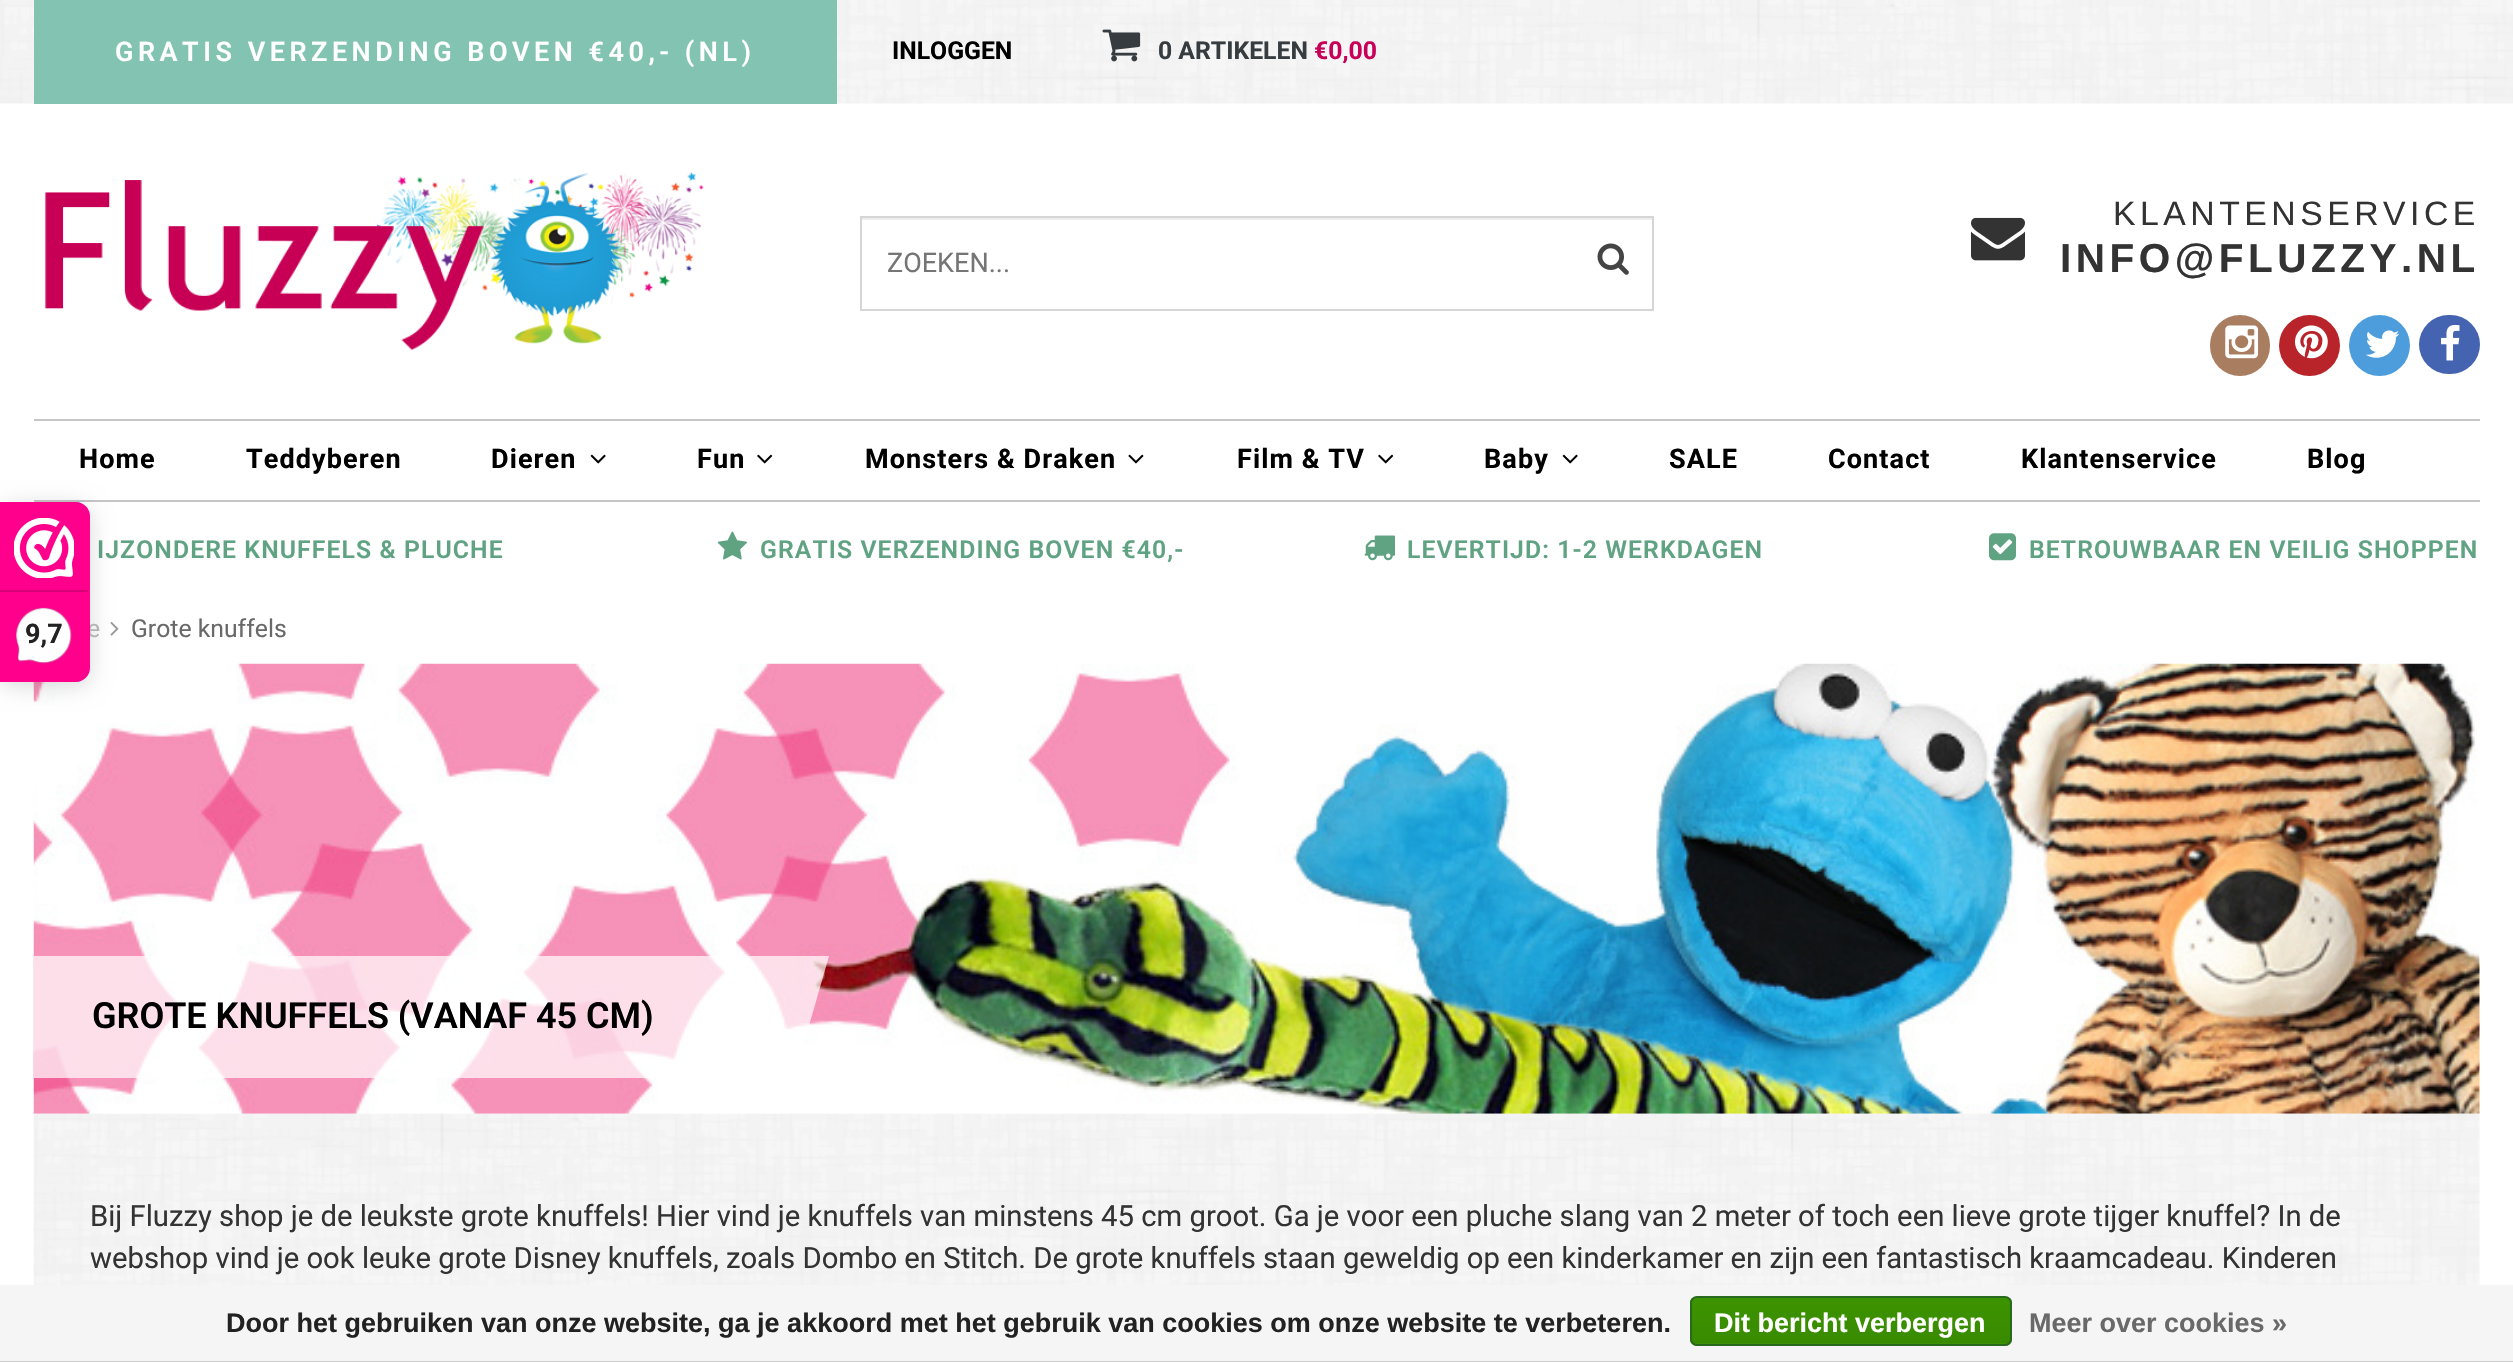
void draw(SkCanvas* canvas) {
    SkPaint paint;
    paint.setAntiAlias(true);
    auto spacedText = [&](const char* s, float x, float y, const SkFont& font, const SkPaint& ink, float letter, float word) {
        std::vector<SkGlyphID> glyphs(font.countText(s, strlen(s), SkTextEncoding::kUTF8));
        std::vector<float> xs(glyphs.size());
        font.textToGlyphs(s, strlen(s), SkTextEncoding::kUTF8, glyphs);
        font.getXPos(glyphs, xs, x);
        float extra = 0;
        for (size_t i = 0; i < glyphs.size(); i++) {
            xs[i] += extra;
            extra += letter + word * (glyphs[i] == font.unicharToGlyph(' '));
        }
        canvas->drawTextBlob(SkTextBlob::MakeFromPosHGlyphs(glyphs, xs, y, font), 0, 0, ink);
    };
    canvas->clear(0xFFFFFFFF);
    canvas->drawImageRect(SkImages::DeferredFromEncodedData(SkData::MakeFromFileName("img1.png")), SkRect::MakeXYWH(0, 0, 2513, 104), SkSamplingOptions());
    paint.setColor(0xFF83C3B2);
    canvas->drawRect(SkRect::MakeXYWH(34, 0, 803, 104), paint);
    SkFont font1(fontMgr->matchFamilyStyle("Roboto", SkFontStyle(600, SkFontStyle::kNormal_Width, SkFontStyle::kUpright_Slant)), 27);
    font1.setSubpixel(true);
    paint.setColor(0xFFFFFFFF);
    spacedText("GRATIS VERZENDING BOVEN €40,- (NL)", 115, 61, font1, paint, 4.5f, 0);
    SkFont font2(fontMgr->matchFamilyStyle("Roboto", SkFontStyle::Bold()), 24.75f);
    font2.setSubpixel(true);
    paint.setColor(0xFF000000);
    canvas->drawString("INLOGGEN", 892, 59, font2, paint);
    canvas->drawImageRect(SkImages::DeferredFromEncodedData(SkData::MakeFromFileName("img2.png")), SkRect::MakeXYWH(1102, 29, 39, 33), SkSamplingOptions());
    paint.setColor(0xFF363C3F);
    canvas->drawString("0 ARTIKELEN", 1158, 59, font2, paint);
    paint.setColor(0xFFC80057);
    canvas->drawString("€0,00", 1314, 59, font2, paint);
    canvas->drawImageRect(SkImages::DeferredFromEncodedData(SkData::MakeFromFileName("img3.png")), SkRect::MakeXYWH(45, 172, 659, 178), SkSamplingOptions());
    paint.setColor(0xFFEEEEEE);
    canvas->drawRect(SkRect::MakeXYWH(862, 218, 790, 2), paint);
    paint.setStyle(SkPaint::kStroke_Style);
    paint.setStrokeWidth(2);
    paint.setColor(0xFFD6D6D6);
    canvas->drawRect(SkRect::MakeXYWH(861, 217, 792, 93), paint);
    SkFont font3(fontMgr->matchFamilyStyle("Roboto", SkFontStyle::Normal()), 27);
    font3.setSubpixel(true);
    paint.setStyle(SkPaint::kFill_Style);
    paint.setColor(0xFF757575);
    canvas->drawString("ZOEKEN...", 887, 272, font3, paint);
    canvas->drawImageRect(SkImages::DeferredFromEncodedData(SkData::MakeFromFileName("img4.png")), SkRect::MakeXYWH(1597, 243, 32, 32), SkSamplingOptions());
    canvas->drawImageRect(SkImages::DeferredFromEncodedData(SkData::MakeFromFileName("img5.png")), SkRect::MakeXYWH(1971, 217, 54, 44), SkSamplingOptions());
    SkFont font4(fontMgr->matchFamilyStyle("Liberation Sans", SkFontStyle::Normal()), 33.75f);
    font4.setSubpixel(true);
    paint.setColor(0xFF333333);
    spacedText("KLANTENSERVICE", 2113, 225, font4, paint, 4.5f, 0);
    SkFont font5(fontMgr->matchFamilyStyle("Liberation Sans", SkFontStyle::Bold()), 40.5f);
    font5.setSubpixel(true);
    spacedText("INFO@FLUZZY.NL", 2060, 272, font5, paint, 4.5f, 0);
    paint.setColor(0xFFA97D60);
    canvas->drawRoundRect(SkRect::MakeXYWH(2210, 315, 60, 61), 30, 30, paint);
    canvas->drawImageRect(SkImages::DeferredFromEncodedData(SkData::MakeFromFileName("img6.png")), SkRect::MakeXYWH(2225, 325, 34, 34), SkSamplingOptions());
    paint.setColor(0xFFB8242A);
    canvas->drawCircle(2309.5f, 345.5f, 30.5f, paint);
    canvas->drawImageRect(SkImages::DeferredFromEncodedData(SkData::MakeFromFileName("img7.png")), SkRect::MakeXYWH(2295, 325, 33, 34), SkSamplingOptions());
    paint.setColor(0xFF4D9DDC);
    canvas->drawCircle(2379.5f, 345.5f, 30.5f, paint);
    canvas->drawImageRect(SkImages::DeferredFromEncodedData(SkData::MakeFromFileName("img8.png")), SkRect::MakeXYWH(2365, 330, 35, 28), SkSamplingOptions());
    paint.setColor(0xFF4463B1);
    canvas->drawRoundRect(SkRect::MakeXYWH(2419, 315, 61, 59), 29.5f, 29.5f, paint);
    canvas->drawImageRect(SkImages::DeferredFromEncodedData(SkData::MakeFromFileName("img9.png")), SkRect::MakeXYWH(2441, 325, 19, 36), SkSamplingOptions());
    paint.setColor(0xFFC7C5C7);
    canvas->drawRect(SkRect::MakeXYWH(34, 419, 2446, 2), paint);
    canvas->drawRect(SkRect::MakeXYWH(34, 500, 2446, 2), paint);
    SkFont font6(fontMgr->matchFamilyStyle("Roboto", SkFontStyle::Bold()), 27);
    font6.setSubpixel(true);
    paint.setColor(0xFF000000);
    spacedText("Home", 79, 468, font6, paint, 1.1f, 0);
    spacedText("Teddyberen", 246, 468, font6, paint, 1.1f, 0);
    spacedText("Dieren", 491, 468, font6, paint, 1.1f, 0);
    canvas->drawImageRect(SkImages::DeferredFromEncodedData(SkData::MakeFromFileName("img10.png")), SkRect::MakeXYWH(590, 454, 16, 10), SkSamplingOptions());
    spacedText("Fun", 697, 468, font6, paint, 1.1f, 0);
    canvas->drawImageRect(SkImages::DeferredFromEncodedData(SkData::MakeFromFileName("img11.png")), SkRect::MakeXYWH(757, 454, 16, 10), SkSamplingOptions());
    spacedText("Monsters & Draken", 865, 468, font6, paint, 1.1f, 0);
    canvas->drawImageRect(SkImages::DeferredFromEncodedData(SkData::MakeFromFileName("img12.png")), SkRect::MakeXYWH(1128, 454, 16, 10), SkSamplingOptions());
    spacedText("Film & TV", 1237, 468, font6, paint, 1.1f, 0);
    canvas->drawImageRect(SkImages::DeferredFromEncodedData(SkData::MakeFromFileName("img11.png")), SkRect::MakeXYWH(1378, 454, 16, 10), SkSamplingOptions());
    spacedText("Baby", 1484, 468, font6, paint, 1.1f, 0);
    canvas->drawImageRect(SkImages::DeferredFromEncodedData(SkData::MakeFromFileName("img10.png")), SkRect::MakeXYWH(1562, 454, 16, 10), SkSamplingOptions());
    spacedText("SALE", 1669, 468, font6, paint, 1.1f, 0);
    spacedText("Contact", 1828, 468, font6, paint, 1.1f, 0);
    spacedText("Klantenservice", 2021, 468, font6, paint, 1.1f, 0);
    spacedText("Blog", 2307, 468, font6, paint, 1.1f, 0);
    SkFont font7(fontMgr->matchFamilyStyle("Roboto", SkFontStyle(600, SkFontStyle::kNormal_Width, SkFontStyle::kUpright_Slant)), 24.75f);
    font7.setSubpixel(true);
    paint.setColor(0xFF60A383);
    spacedText("IJZONDERE KNUFFELS & PLUCHE", 97, 558, font7, paint, 1.1f, 0);
    canvas->drawImageRect(SkImages::DeferredFromEncodedData(SkData::MakeFromFileName("img13.png")), SkRect::MakeXYWH(717, 531, 30, 29), SkSamplingOptions());
    spacedText("GRATIS VERZENDING BOVEN €40,-", 760, 558, font7, paint, 1.1f, 0);
    canvas->drawImageRect(SkImages::DeferredFromEncodedData(SkData::MakeFromFileName("img14.png")), SkRect::MakeXYWH(1364, 535, 31, 26), SkSamplingOptions());
    spacedText("LEVERTIJD: 1-2 WERKDAGEN", 1407, 558, font7, paint, 1.1f, 0);
    canvas->drawImageRect(SkImages::DeferredFromEncodedData(SkData::MakeFromFileName("img15.png")), SkRect::MakeXYWH(1989, 533, 27, 28), SkSamplingOptions());
    spacedText("BETROUWBAAR EN VEILIG SHOPPEN", 2029, 558, font7, paint, 1.1f, 0);
    canvas->drawImageRect(SkImages::DeferredFromEncodedData(SkData::MakeFromFileName("img18.png")), SkRect::MakeXYWH(110, 622, 9, 14), SkSamplingOptions());
    canvas->drawImageRect(SkImages::DeferredFromEncodedData(SkData::MakeFromFileName("img19.png")), SkRect::MakeXYWH(33, 663, 2447, 451), SkSamplingOptions());
    paint.setColor(0x26000000);
    paint.setMaskFilter(SkMaskFilter::MakeBlur(kNormal_SkBlurStyle, 11));
    canvas->drawRoundRect(SkRect::MakeXYWH(0, 506, 90, 180), 14, 14, paint);
    paint.setMaskFilter(nullptr);
    SkFont font8(fontMgr->matchFamilyStyle("Roboto", SkFontStyle::Normal()), 24.75f);
    font8.setSubpixel(true);
    paint.setColor(0xFFB4B4B4);
    canvas->drawString("e", 87, 637, font8, paint);
    paint.setColor(0xFFFE008C);
    canvas->drawPath(SkPathBuilder().moveTo(0, 502).lineTo(76, 502).cubicTo(83.5f, 502, 90, 508.5f, 90, 516).lineTo(90, 668).cubicTo(90, 675.5f, 83.5f, 682, 76, 682).lineTo(0, 682).close().detach(), paint);
    canvas->drawImageRect(SkImages::DeferredFromEncodedData(SkData::MakeFromFileName("img16.png")), SkRect::MakeXYWH(14, 518, 60, 60), SkSamplingOptions());
    paint.setColor(0xFFD80077);
    canvas->drawRect(SkRect::MakeXYWH(0, 590, 88, 2), paint);
    canvas->drawImageRect(SkImages::DeferredFromEncodedData(SkData::MakeFromFileName("img17.png")), SkRect::MakeXYWH(16, 607, 56, 57), SkSamplingOptions());
    paint.setColor(0xFF222222);
    canvas->drawString("9,7", 25, 643, font6, paint);
    paint.setColor(0xFF696969);
    canvas->drawString("Grote knuffels", 131, 637, font8, paint);
    canvas->save();
    canvas->clipRect(SkRect::MakeXYWH(34, 664, 2446, 450));
    paint.setColor(0xB3FFFFFF);
    canvas->drawPath(SkPathBuilder().moveTo(20, 956).lineTo(829, 956).lineTo(794, 1078).lineTo(-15, 1078).close().detach(), paint);
    canvas->restore();
    SkFont font9(fontMgr->matchFamilyStyle("Roboto", SkFontStyle(600, SkFontStyle::kNormal_Width, SkFontStyle::kUpright_Slant)), 36);
    font9.setSubpixel(true);
    paint.setColor(0xFF000000);
    canvas->drawString("GROTE KNUFFELS (VANAF 45 CM)", 92, 1028, font9, paint);
    canvas->drawImageRect(SkImages::DeferredFromEncodedData(SkData::MakeFromFileName("img20.png")), SkRect::MakeXYWH(33, 1113, 2447, 172), SkSamplingOptions());
    SkFont font10(fontMgr->matchFamilyStyle("Roboto", SkFontStyle::Normal()), 29.25f);
    font10.setSubpixel(true);
    paint.setColor(0xFF333333);
    canvas->drawString("Bij Fluzzy shop je de leukste grote knuffels! Hier vind je knuffels van minstens 45 cm groot. Ga je voor een pluche slang van 2 meter of toch een lieve grote tijger knuffel? In de", 90, 1226, font10, paint);
    canvas->drawString("webshop vind je ook leuke grote Disney knuffels, zoals Dombo en Stitch. De grote knuffels staan geweldig op een kinderkamer en zijn een fantastisch kraamcadeau. Kinderen", 90, 1268, font10, paint);
    paint.setColor(0xFFF5F5F5);
    canvas->drawRect(SkRect::MakeXYWH(0, 1285, 2513, 76), paint);
    paint.setColor(0xFFCCCCCC);
    canvas->drawRect(SkRect::MakeXYWH(0, 1361, 2513, 1), paint);
    SkFont font11(fontMgr->matchFamilyStyle("Liberation Sans", SkFontStyle::Bold()), 27);
    font11.setSubpixel(true);
    paint.setColor(0xFF222222);
    canvas->drawString("Door het gebruiken van onze website, ga je akkoord met het gebruik van cookies om onze website te verbeteren.", 226, 1332, font11, paint);
    canvas->save();
    canvas->clipPath(SkPathBuilder().moveTo(1697, 1296).lineTo(2005, 1296).cubicTo(2009, 1296, 2012, 1299, 2012, 1303).lineTo(2012, 1339).cubicTo(2012, 1343, 2009, 1346, 2005, 1346).lineTo(1697, 1346).cubicTo(1693, 1346, 1690, 1343, 1690, 1339).lineTo(1690, 1303).cubicTo(1690, 1299, 1693, 1296, 1697, 1296).close().detach(), true);
    {
        const SkColor colors[] = {0xFF3C9300, 0xFF398A00};
        const float stops[] = {0, 1};
        const SkPoint ends[] = {{1851, 1298}, {1851, 1343}};
        paint.setShader(SkGradientShader::MakeLinear(ends, colors, stops, 2, SkTileMode::kClamp));
        paint.setAlpha(255);
    }
    canvas->drawRect(SkRect::MakeXYWH(1690, 1298, 322, 45), paint);
    {
        const SkColor colors[] = {0xFF3C9300, 0xFF398A00};
        const float stops[] = {0, 1};
        const SkPoint ends[] = {{1851, 1343}, {1851, 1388}};
        paint.setShader(SkGradientShader::MakeLinear(ends, colors, stops, 2, SkTileMode::kClamp));
        paint.setAlpha(255);
    }
    canvas->drawRect(SkRect::MakeXYWH(1690, 1343, 322, 3), paint);
    canvas->restore();
    paint.setStyle(SkPaint::kStroke_Style);
    paint.setShader(nullptr);
    paint.setColor(0xFF29691D);
    canvas->drawRoundRect(SkRect::MakeXYWH(1691, 1297, 320, 48), 6, 6, paint);
    paint.setStyle(SkPaint::kFill_Style);
    paint.setColor(0xFFFFFFFF);
    canvas->drawString("Dit bericht verbergen", 1714, 1332, font11, paint);
    paint.setColor(0xFF696969);
    canvas->drawString("Meer over cookies »", 2029, 1332, font11, paint);
}
